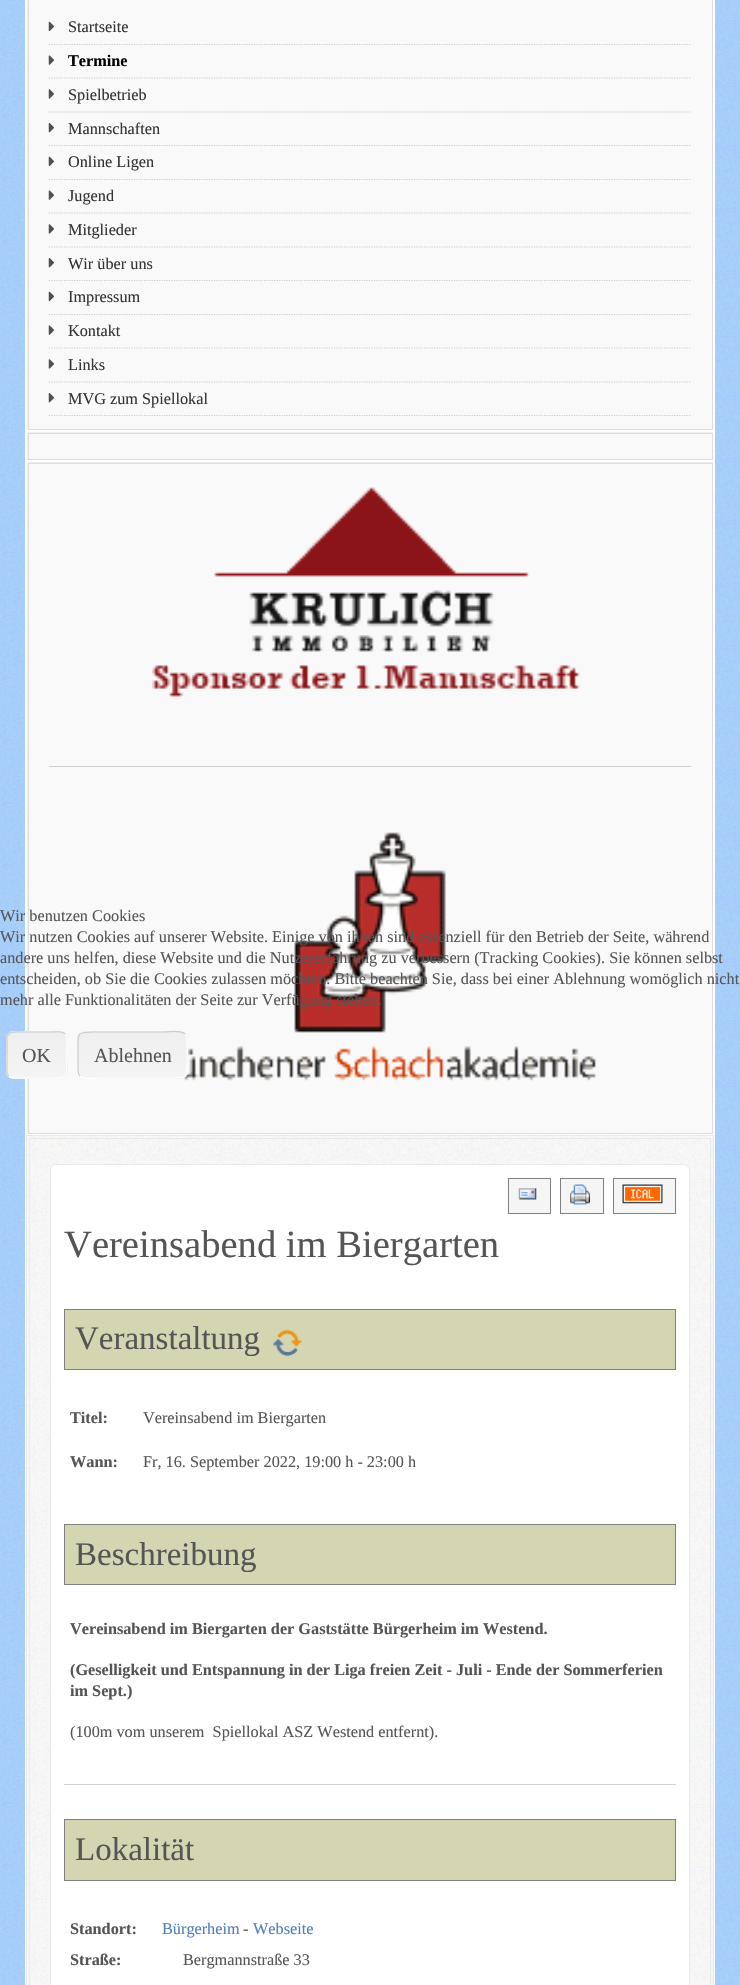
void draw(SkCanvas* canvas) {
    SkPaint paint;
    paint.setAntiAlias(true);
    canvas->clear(0xFFA2CDFD);
    canvas->drawImageRect(SkImages::DeferredFromEncodedData(SkData::MakeFromFileName("img1.png")), SkRect::MakeXYWH(0, 0, 740, 1985), SkSamplingOptions());
    paint.setColor(0xFFEFEFEF);
    canvas->drawRect(SkRect::MakeXYWH(27, 0, 686, 1134), paint);
    paint.setStyle(SkPaint::kStroke_Style);
    paint.setStrokeWidth(1);
    paint.setColor(0xFFFFFFFF);
    canvas->drawRect(SkRect::MakeXYWH(25.5f, -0.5f, 689, 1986), paint);
    canvas->drawRect(SkRect::MakeXYWH(26.5f, -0.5f, 687, 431), paint);
    paint.setStyle(SkPaint::kFill_Style);
    paint.setColor(0xFFF9F9F9);
    canvas->drawRect(SkRect::MakeXYWH(28.5f, -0.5f, 684, 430), paint);
    paint.setStyle(SkPaint::kStroke_Style);
    paint.setColor(0xFFDDDDDD);
    canvas->drawRect(SkRect::MakeXYWH(28.5f, -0.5f, 684, 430), paint);
    canvas->drawImageRect(SkImages::DeferredFromEncodedData(SkData::MakeFromFileName("img2.png")), SkRect::MakeXYWH(48, 21, 7, 11), SkSamplingOptions());
    paint.setStrokeWidth(1.2f);
    paint.setColor(0xFFCCCCCC);
    paint.setPathEffect(SkDashPathEffect::Make({{1.25f, 1.25f}}, 0));
    canvas->drawPath(SkPathBuilder().moveTo(49, 44.5f).lineTo(691, 44.5f).detach(), paint);
    paint.setPathEffect(nullptr);
    SkFont font1(fontMgr->matchFamilyStyle("Liberation Serif", SkFontStyle::Normal()), 16.25f);
    font1.setSubpixel(true);
    paint.setStyle(SkPaint::kFill_Style);
    paint.setColor(0xFF333333);
    canvas->drawString("Startseite", 68, 32, font1, paint);
    canvas->drawImageRect(SkImages::DeferredFromEncodedData(SkData::MakeFromFileName("img3.png")), SkRect::MakeXYWH(48, 55, 7, 10), SkSamplingOptions());
    paint.setStyle(SkPaint::kStroke_Style);
    paint.setColor(0xFFCCCCCC);
    paint.setPathEffect(SkDashPathEffect::Make({{1.25f, 1.25f}}, 0));
    canvas->drawPath(SkPathBuilder().moveTo(49, 78).lineTo(691, 78).detach(), paint);
    paint.setPathEffect(nullptr);
    SkFont font2(fontMgr->matchFamilyStyle("Liberation Serif", SkFontStyle::Bold()), 16.25f);
    font2.setSubpixel(true);
    paint.setStyle(SkPaint::kFill_Style);
    paint.setColor(0xFF000000);
    canvas->drawString("Termine", 68, 66, font2, paint);
    canvas->drawImageRect(SkImages::DeferredFromEncodedData(SkData::MakeFromFileName("img4.png")), SkRect::MakeXYWH(48, 89, 6, 10), SkSamplingOptions());
    paint.setStyle(SkPaint::kStroke_Style);
    paint.setColor(0xFFCCCCCC);
    paint.setPathEffect(SkDashPathEffect::Make({{1.25f, 1.25f}}, 0));
    canvas->drawPath(SkPathBuilder().moveTo(49, 112).lineTo(691, 112).detach(), paint);
    paint.setPathEffect(nullptr);
    paint.setStyle(SkPaint::kFill_Style);
    paint.setColor(0xFF333333);
    canvas->drawString("Spielbetrieb", 68, 100, font1, paint);
    canvas->drawImageRect(SkImages::DeferredFromEncodedData(SkData::MakeFromFileName("img5.png")), SkRect::MakeXYWH(48, 123, 7, 10), SkSamplingOptions());
    paint.setStyle(SkPaint::kStroke_Style);
    paint.setColor(0xFFCCCCCC);
    paint.setPathEffect(SkDashPathEffect::Make({{1.25f, 1.25f}}, 0));
    canvas->drawPath(SkPathBuilder().moveTo(49, 145.5f).lineTo(691, 145.5f).detach(), paint);
    paint.setPathEffect(nullptr);
    paint.setStyle(SkPaint::kFill_Style);
    paint.setColor(0xFF333333);
    canvas->drawString("Mannschaften", 68, 134, font1, paint);
    canvas->drawImageRect(SkImages::DeferredFromEncodedData(SkData::MakeFromFileName("img2.png")), SkRect::MakeXYWH(48, 156, 7, 11), SkSamplingOptions());
    paint.setStyle(SkPaint::kStroke_Style);
    paint.setColor(0xFFCCCCCC);
    paint.setPathEffect(SkDashPathEffect::Make({{1.25f, 1.25f}}, 0));
    canvas->drawPath(SkPathBuilder().moveTo(49, 179.5f).lineTo(691, 179.5f).detach(), paint);
    paint.setPathEffect(nullptr);
    paint.setStyle(SkPaint::kFill_Style);
    paint.setColor(0xFF333333);
    canvas->drawString("Online Ligen", 68, 167, font1, paint);
    canvas->drawImageRect(SkImages::DeferredFromEncodedData(SkData::MakeFromFileName("img3.png")), SkRect::MakeXYWH(48, 190, 7, 10), SkSamplingOptions());
    paint.setStyle(SkPaint::kStroke_Style);
    paint.setColor(0xFFCCCCCC);
    paint.setPathEffect(SkDashPathEffect::Make({{1.25f, 1.25f}}, 0));
    canvas->drawPath(SkPathBuilder().moveTo(49, 213).lineTo(691, 213).detach(), paint);
    paint.setPathEffect(nullptr);
    paint.setStyle(SkPaint::kFill_Style);
    paint.setColor(0xFF333333);
    canvas->drawString("Jugend", 68, 201, font1, paint);
    canvas->drawImageRect(SkImages::DeferredFromEncodedData(SkData::MakeFromFileName("img4.png")), SkRect::MakeXYWH(48, 224, 6, 10), SkSamplingOptions());
    paint.setStyle(SkPaint::kStroke_Style);
    paint.setColor(0xFFCCCCCC);
    paint.setPathEffect(SkDashPathEffect::Make({{1.25f, 1.25f}}, 0));
    canvas->drawPath(SkPathBuilder().moveTo(49, 247).lineTo(691, 247).detach(), paint);
    paint.setPathEffect(nullptr);
    paint.setStyle(SkPaint::kFill_Style);
    paint.setColor(0xFF333333);
    canvas->drawString("Mitglieder", 68, 235, font1, paint);
    canvas->drawImageRect(SkImages::DeferredFromEncodedData(SkData::MakeFromFileName("img5.png")), SkRect::MakeXYWH(48, 258, 7, 10), SkSamplingOptions());
    paint.setStyle(SkPaint::kStroke_Style);
    paint.setColor(0xFFCCCCCC);
    paint.setPathEffect(SkDashPathEffect::Make({{1.25f, 1.25f}}, 0));
    canvas->drawPath(SkPathBuilder().moveTo(49, 280.5f).lineTo(691, 280.5f).detach(), paint);
    paint.setPathEffect(nullptr);
    paint.setStyle(SkPaint::kFill_Style);
    paint.setColor(0xFF333333);
    canvas->drawString("Wir über uns", 68, 269, font1, paint);
    canvas->drawImageRect(SkImages::DeferredFromEncodedData(SkData::MakeFromFileName("img2.png")), SkRect::MakeXYWH(48, 291, 7, 11), SkSamplingOptions());
    paint.setStyle(SkPaint::kStroke_Style);
    paint.setColor(0xFFCCCCCC);
    paint.setPathEffect(SkDashPathEffect::Make({{1.25f, 1.25f}}, 0));
    canvas->drawPath(SkPathBuilder().moveTo(49, 314.5f).lineTo(691, 314.5f).detach(), paint);
    paint.setPathEffect(nullptr);
    paint.setStyle(SkPaint::kFill_Style);
    paint.setColor(0xFF333333);
    canvas->drawString("Impressum", 68, 302, font1, paint);
    canvas->drawImageRect(SkImages::DeferredFromEncodedData(SkData::MakeFromFileName("img3.png")), SkRect::MakeXYWH(48, 325, 7, 10), SkSamplingOptions());
    paint.setStyle(SkPaint::kStroke_Style);
    paint.setColor(0xFFCCCCCC);
    paint.setPathEffect(SkDashPathEffect::Make({{1.25f, 1.25f}}, 0));
    canvas->drawPath(SkPathBuilder().moveTo(49, 348).lineTo(691, 348).detach(), paint);
    paint.setPathEffect(nullptr);
    paint.setStyle(SkPaint::kFill_Style);
    paint.setColor(0xFF333333);
    canvas->drawString("Kontakt", 68, 336, font1, paint);
    canvas->drawImageRect(SkImages::DeferredFromEncodedData(SkData::MakeFromFileName("img4.png")), SkRect::MakeXYWH(48, 359, 6, 10), SkSamplingOptions());
    paint.setStyle(SkPaint::kStroke_Style);
    paint.setColor(0xFFCCCCCC);
    paint.setPathEffect(SkDashPathEffect::Make({{1.25f, 1.25f}}, 0));
    canvas->drawPath(SkPathBuilder().moveTo(49, 382).lineTo(691, 382).detach(), paint);
    paint.setPathEffect(nullptr);
    paint.setStyle(SkPaint::kFill_Style);
    paint.setColor(0xFF333333);
    canvas->drawString("Links", 68, 370, font1, paint);
    canvas->drawImageRect(SkImages::DeferredFromEncodedData(SkData::MakeFromFileName("img5.png")), SkRect::MakeXYWH(48, 393, 7, 10), SkSamplingOptions());
    paint.setStyle(SkPaint::kStroke_Style);
    paint.setColor(0xFFCCCCCC);
    paint.setPathEffect(SkDashPathEffect::Make({{1.25f, 1.25f}}, 0));
    canvas->drawPath(SkPathBuilder().moveTo(49, 415.5f).lineTo(691, 415.5f).detach(), paint);
    paint.setPathEffect(nullptr);
    paint.setStyle(SkPaint::kFill_Style);
    paint.setColor(0xFF333333);
    canvas->drawString("MVG zum Spiellokal", 68, 404, font1, paint);
    paint.setStyle(SkPaint::kStroke_Style);
    paint.setStrokeWidth(1);
    paint.setColor(0xFFFFFFFF);
    canvas->drawRect(SkRect::MakeXYWH(26.5f, 431.5f, 687, 29), paint);
    paint.setStyle(SkPaint::kFill_Style);
    paint.setColor(0xFFF9F9F9);
    canvas->drawRect(SkRect::MakeXYWH(28.5f, 433.5f, 684, 26), paint);
    paint.setStyle(SkPaint::kStroke_Style);
    paint.setColor(0xFFDDDDDD);
    canvas->drawRect(SkRect::MakeXYWH(28.5f, 433.5f, 684, 26), paint);
    paint.setColor(0xFFFFFFFF);
    canvas->drawRect(SkRect::MakeXYWH(26.5f, 461.5f, 687, 673), paint);
    paint.setStyle(SkPaint::kFill_Style);
    paint.setColor(0xFFF9F9F9);
    canvas->drawRect(SkRect::MakeXYWH(28.5f, 463.5f, 684, 670), paint);
    paint.setStyle(SkPaint::kStroke_Style);
    paint.setColor(0xFFDDDDDD);
    canvas->drawRect(SkRect::MakeXYWH(28.5f, 463.5f, 684, 670), paint);
    canvas->drawImageRect(SkImages::DeferredFromEncodedData(SkData::MakeFromFileName("img6.png")), SkRect::MakeXYWH(152, 487, 429, 210), SkSamplingOptions());
    paint.setStyle(SkPaint::kFill_Style);
    paint.setColor(0xFFCFCFCF);
    canvas->drawRect(SkRect::MakeXYWH(49, 766, 642, 1), paint);
    canvas->drawImageRect(SkImages::DeferredFromEncodedData(SkData::MakeFromFileName("img7.png")), SkRect::MakeXYWH(183, 832, 413, 249), SkSamplingOptions());
    paint.setColor(0xFFF9F9F9);
    canvas->drawRect(SkRect::MakeXYWH(27, 1136, 686, 849), paint);
    canvas->drawImageRect(SkImages::DeferredFromEncodedData(SkData::MakeFromFileName("img8.png")), SkRect::MakeXYWH(26, 1134, 688, 851), SkSamplingOptions());
    paint.setStyle(SkPaint::kStroke_Style);
    paint.setColor(0xFFE9E9E9);
    canvas->drawRect(SkRect::MakeXYWH(26.5f, 1135.5f, 687, 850), paint);
    canvas->drawRect(SkRect::MakeXYWH(29.5f, 1138.5f, 681, 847), paint);
    paint.setStyle(SkPaint::kFill_Style);
    paint.setColor(0xFFFFFFFF);
    canvas->drawRoundRect(SkRect::MakeXYWH(50.5f, 1164.5f, 639, 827), 5.5f, 5.5f, paint);
    paint.setStyle(SkPaint::kStroke_Style);
    paint.setColor(0xFFE9E9E9);
    canvas->drawRoundRect(SkRect::MakeXYWH(50.5f, 1164.5f, 639, 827), 5.5f, 5.5f, paint);
    paint.setStyle(SkPaint::kFill_Style);
    paint.setColor(0xFFF5F5F5);
    canvas->drawRect(SkRect::MakeXYWH(508.5f, 1178.5f, 42, 35), paint);
    paint.setStyle(SkPaint::kStroke_Style);
    paint.setColor(0xFF808080);
    canvas->drawRect(SkRect::MakeXYWH(508.5f, 1178.5f, 42, 35), paint);
    canvas->drawImageRect(SkImages::DeferredFromEncodedData(SkData::MakeFromFileName("img9.png")), SkRect::MakeXYWH(518, 1188, 19, 12), SkSamplingOptions());
    paint.setStyle(SkPaint::kFill_Style);
    paint.setColor(0xFFF5F5F5);
    canvas->drawRect(SkRect::MakeXYWH(560.5f, 1178.5f, 43, 35), paint);
    paint.setStyle(SkPaint::kStroke_Style);
    paint.setColor(0xFF808080);
    canvas->drawRect(SkRect::MakeXYWH(560.5f, 1178.5f, 43, 35), paint);
    canvas->drawImageRect(SkImages::DeferredFromEncodedData(SkData::MakeFromFileName("img10.png")), SkRect::MakeXYWH(570, 1184, 20, 21), SkSamplingOptions());
    paint.setStyle(SkPaint::kFill_Style);
    paint.setColor(0xFFF5F5F5);
    canvas->drawRect(SkRect::MakeXYWH(613.5f, 1178.5f, 62, 35), paint);
    paint.setStyle(SkPaint::kStroke_Style);
    paint.setColor(0xFF808080);
    canvas->drawRect(SkRect::MakeXYWH(613.5f, 1178.5f, 62, 35), paint);
    canvas->drawImageRect(SkImages::DeferredFromEncodedData(SkData::MakeFromFileName("img11.png")), SkRect::MakeXYWH(622, 1184, 41, 20), SkSamplingOptions());
    SkFont font3(fontMgr->matchFamilyStyle("Liberation Serif", SkFontStyle::Normal()), 38.6f);
    font3.setSubpixel(true);
    paint.setStyle(SkPaint::kFill_Style);
    paint.setColor(0xFF555555);
    canvas->drawString("Vereinsabend im Biergarten", 64, 1257, font3, paint);
    paint.setColor(0xFFD4D6B2);
    canvas->drawRect(SkRect::MakeXYWH(64.5f, 1309.5f, 611, 60), paint);
    paint.setStyle(SkPaint::kStroke_Style);
    paint.setColor(0xFF808080);
    canvas->drawRect(SkRect::MakeXYWH(64.5f, 1309.5f, 611, 60), paint);
    SkFont font4(fontMgr->matchFamilyStyle("Liberation Serif", SkFontStyle::Normal()), 33);
    font4.setSubpixel(true);
    paint.setStyle(SkPaint::kFill_Style);
    paint.setColor(0xFF555555);
    canvas->drawString("Veranstaltung", 75, 1349, font4, paint);
    canvas->drawImageRect(SkImages::DeferredFromEncodedData(SkData::MakeFromFileName("img12.png")), SkRect::MakeXYWH(273, 1329, 29, 28), SkSamplingOptions());
    canvas->drawString("Titel:", 70, 1423, font2, paint);
    canvas->drawString("Vereinsabend im Biergarten", 143, 1423, font1, paint);
    canvas->drawString("Wann:", 70, 1467, font2, paint);
    canvas->drawString("Fr, 16. September 2022, 19:00 h - 23:00 h", 143, 1467, font1, paint);
    paint.setColor(0xFFD4D6B2);
    canvas->drawRect(SkRect::MakeXYWH(64.5f, 1524.5f, 611, 60), paint);
    paint.setStyle(SkPaint::kStroke_Style);
    paint.setColor(0xFF808080);
    canvas->drawRect(SkRect::MakeXYWH(64.5f, 1524.5f, 611, 60), paint);
    paint.setStyle(SkPaint::kFill_Style);
    paint.setColor(0xFF555555);
    canvas->drawString("Beschreibung", 75, 1565, font4, paint);
    canvas->drawString("Vereinsabend im Biergarten der Gaststätte Bürgerheim im Westend.", 70, 1634, font2, paint);
    canvas->drawString("(Geselligkeit und Entspannung in der Liga freien Zeit - Juli - Ende der Sommerferien", 70, 1675, font2, paint);
    canvas->drawString("im Sept.)", 70, 1696, font2, paint);
    canvas->drawString("(100m vom unserem  Spiellokal ASZ Westend entfernt).", 70, 1737, font1, paint);
    paint.setColor(0xFFD5D5D5);
    canvas->drawRect(SkRect::MakeXYWH(64, 1784, 612, 1), paint);
    paint.setColor(0xFFD4D6B2);
    canvas->drawRect(SkRect::MakeXYWH(64.5f, 1819.5f, 611, 61), paint);
    paint.setStyle(SkPaint::kStroke_Style);
    paint.setColor(0xFF808080);
    canvas->drawRect(SkRect::MakeXYWH(64.5f, 1819.5f, 611, 61), paint);
    paint.setStyle(SkPaint::kFill_Style);
    paint.setColor(0xFF555555);
    canvas->drawString("Lokalität", 75, 1860, font4, paint);
    canvas->drawString("Standort:", 70, 1934, font2, paint);
    paint.setColor(0xFF527DBD);
    canvas->drawString("Bürgerheim", 162, 1934, font1, paint);
    paint.setColor(0xFF555555);
    canvas->drawString("-", 243, 1934, font1, paint);
    paint.setColor(0xFF527DBD);
    canvas->drawString("Webseite", 253, 1934, font1, paint);
    paint.setColor(0xFF555555);
    canvas->drawString("Straße:", 70, 1965, font2, paint);
    canvas->drawString("Bergmannstraße 33", 183, 1965, font1, paint);
    canvas->drawString("Wir benutzen Cookies", 0, 921, font1, paint);
    canvas->drawString("Wir nutzen Cookies auf unserer Website. Einige von ihnen sind essenziell für den Betrieb der Seite, während", 0, 942, font1, paint);
    canvas->drawString("andere uns helfen, diese Website und die Nutzererfahrung zu verbessern (Tracking Cookies). Sie können selbst", 0, 963, font1, paint);
    canvas->drawString("entscheiden, ob Sie die Cookies zulassen möchten. Bitte beachten Sie, dass bei einer Ablehnung womöglich nicht", 0, 984, font1, paint);
    canvas->drawString("mehr alle Funktionalitäten der Seite zur Verfügung stehen.", 0, 1005, font1, paint);
    paint.setColor(0xFFEFEFEF);
    canvas->drawRoundRect(SkRect::MakeXYWH(6, 1031, 62, 48), 8, 8, paint);
    canvas->save();
    canvas->clipPath(SkPathBuilder().moveTo(14, 1031).lineTo(60, 1031).cubicTo(64.5f, 1031, 68, 1034.5f, 68, 1039).lineTo(68, 1071).cubicTo(68, 1075.5f, 64.5f, 1079, 60, 1079).lineTo(14, 1079).cubicTo(9.5f, 1079, 6, 1075.5f, 6, 1071).lineTo(6, 1039).cubicTo(6, 1034.5f, 9.5f, 1031, 14, 1031).close().detach(), true);
    {
        const SkColor colors[] = {0xFFEFEFEF, 0xFFF4F4F4};
        const float stops[] = {0, 1};
        const SkPoint ends[] = {{37, 1033}, {37, 1078}};
        paint.setShader(SkGradientShader::MakeLinear(ends, colors, stops, 2, SkTileMode::kClamp));
        paint.setAlpha(255);
    }
    canvas->drawRect(SkRect::MakeXYWH(6, 1033, 62, 45), paint);
    canvas->restore();
    paint.setStyle(SkPaint::kStroke_Style);
    paint.setStrokeWidth(1.2f);
    paint.setShader(nullptr);
    paint.setColor(0xFFFFFFFF);
    canvas->drawPath(SkPathBuilder().moveTo(65, 1034).cubicTo(67.5f, 1036.5f, 67, 1040.5f, 67, 1044).lineTo(66.5f, 1072.5f).cubicTo(65.5f, 1079.5f, 57.5f, 1078, 52.5f, 1078).lineTo(21.5f, 1078).cubicTo(17.5f, 1078, 12, 1079.5f, 9, 1076).detach(), paint);
    paint.setColor(0xFFCCCCCC);
    canvas->drawPath(SkPathBuilder().moveTo(9, 1076).cubicTo(6, 1073.5f, 7, 1069.5f, 7, 1066).lineTo(7, 1037.5f).cubicTo(8.5f, 1030.5f, 16.5f, 1032, 21.5f, 1032).lineTo(52.5f, 1032).cubicTo(56, 1032, 61.5f, 1030.5f, 65, 1034).detach(), paint);
    SkFont font5(fontMgr->matchFamilyStyle("Liberation Serif", SkFontStyle::Normal()), 20);
    font5.setSubpixel(true);
    paint.setStyle(SkPaint::kFill_Style);
    paint.setColor(0xFF555555);
    canvas->drawString("OK", 22, 1062, font5, paint);
    paint.setColor(0xFFEFEFEF);
    canvas->drawRoundRect(SkRect::MakeXYWH(78, 1031, 110, 48), 8, 8, paint);
    canvas->save();
    canvas->clipPath(SkPathBuilder().moveTo(86, 1031).lineTo(180, 1031).cubicTo(184.5f, 1031, 188, 1034.5f, 188, 1039).lineTo(188, 1071).cubicTo(188, 1075.5f, 184.5f, 1079, 180, 1079).lineTo(86, 1079).cubicTo(81.5f, 1079, 78, 1075.5f, 78, 1071).lineTo(78, 1039).cubicTo(78, 1034.5f, 81.5f, 1031, 86, 1031).close().detach(), true);
    {
        const SkColor colors[] = {0xFFEFEFEF, 0xFFF4F4F4};
        const float stops[] = {0, 1};
        const SkPoint ends[] = {{133, 1033}, {133, 1078}};
        paint.setShader(SkGradientShader::MakeLinear(ends, colors, stops, 2, SkTileMode::kClamp));
        paint.setAlpha(255);
    }
    canvas->drawRect(SkRect::MakeXYWH(78, 1033, 110, 45), paint);
    canvas->restore();
    paint.setStyle(SkPaint::kStroke_Style);
    paint.setShader(nullptr);
    paint.setColor(0xFFFFFFFF);
    canvas->drawPath(SkPathBuilder().moveTo(185, 1034).cubicTo(187.5f, 1036.5f, 187, 1040.5f, 187, 1044).lineTo(187, 1055).cubicTo(187, 1080, 190, 1078, 164, 1078).lineTo(101, 1078).cubicTo(99, 1078, 84.5f, 1080.5f, 80, 1076).detach(), paint);
    paint.setColor(0xFFCCCCCC);
    canvas->drawPath(SkPathBuilder().moveTo(80, 1076).cubicTo(77.5f, 1073.5f, 78, 1069.5f, 78, 1066).lineTo(78, 1055).cubicTo(78, 1030, 75, 1032, 101, 1032).lineTo(164, 1032).cubicTo(166, 1032, 180.5f, 1029.5f, 185, 1034).detach(), paint);
    paint.setStyle(SkPaint::kFill_Style);
    paint.setColor(0xFF555555);
    canvas->drawString("Ablehnen", 94, 1062, font5, paint);
}
